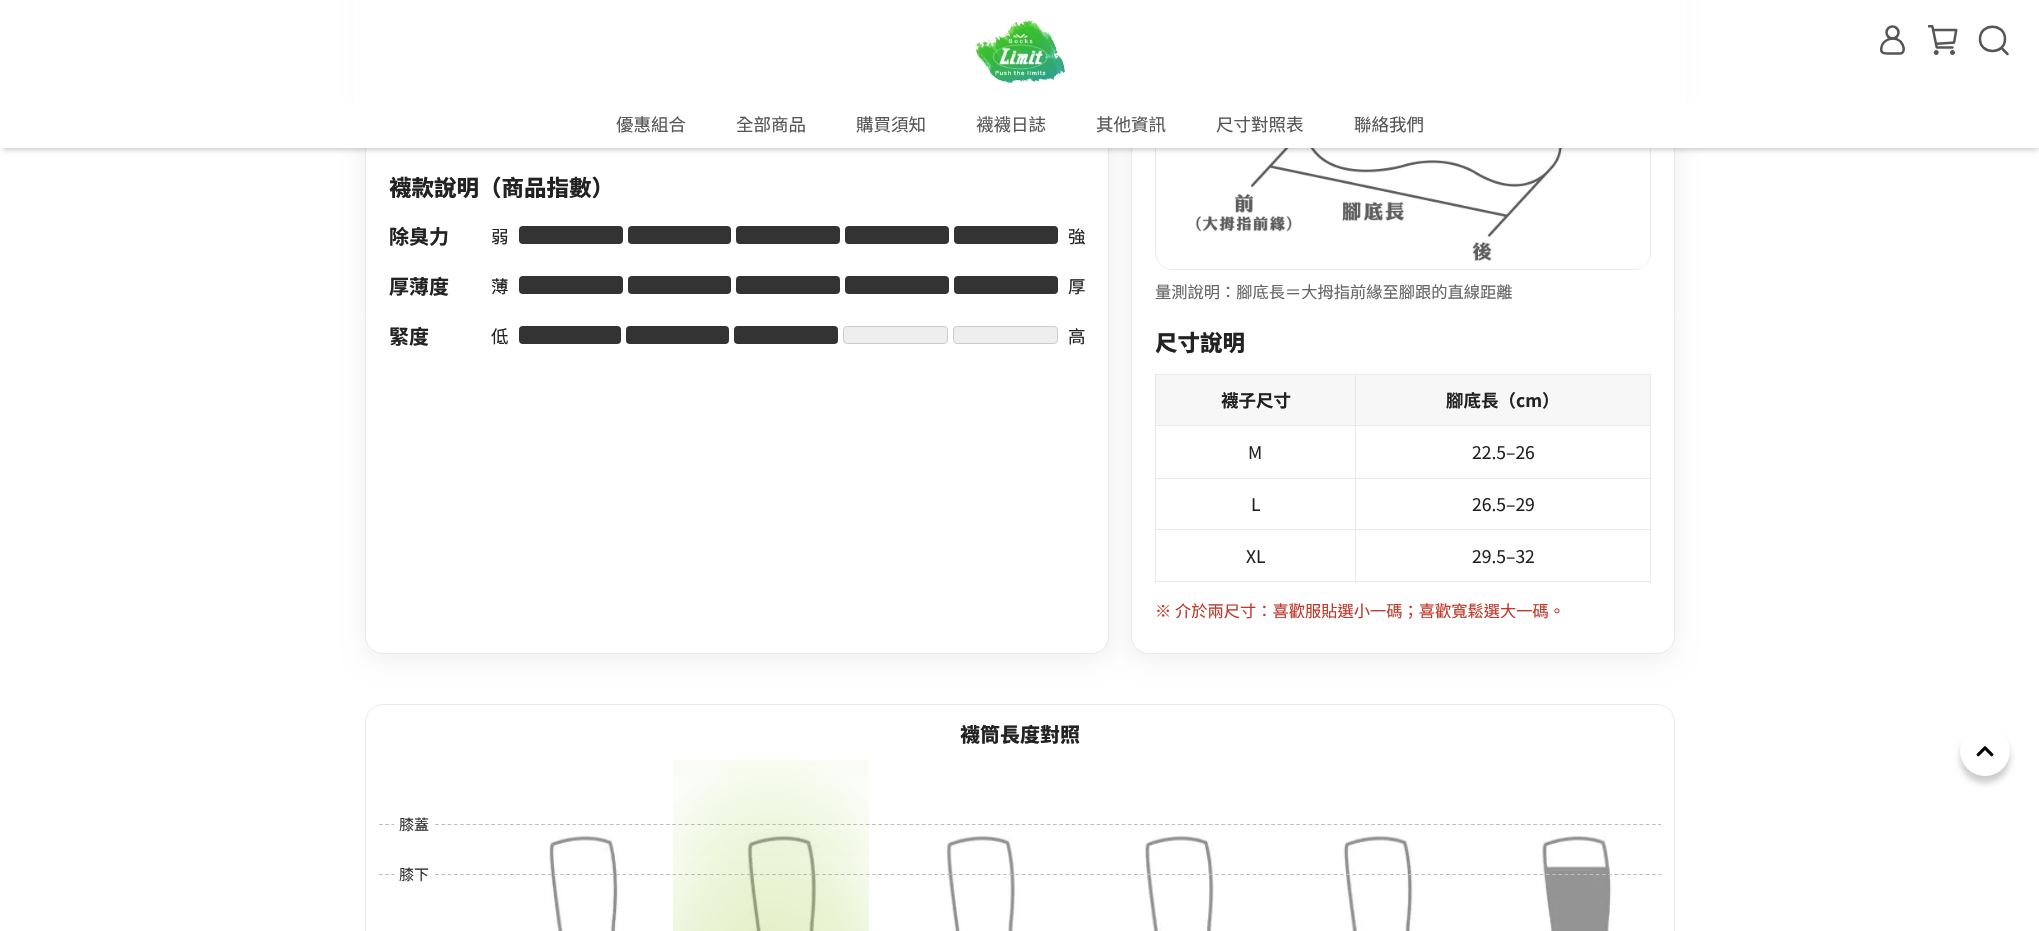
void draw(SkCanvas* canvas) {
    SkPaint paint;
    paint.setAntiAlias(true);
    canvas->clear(0xFFFFFFFF);
    paint.setColor(0x0F000000);
    paint.setMaskFilter(SkMaskFilter::MakeBlur(kNormal_SkBlurStyle, 11));
    canvas->drawRoundRect(SkRect::MakeXYWH(365, -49, 744, 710), 18, 18, paint);
    paint.setMaskFilter(nullptr);
    paint.setColor(0xFFFFFFFF);
    canvas->drawRoundRect(SkRect::MakeXYWH(365.5f, -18.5f, 743, 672), 17.5f, 17.5f, paint);
    paint.setStyle(SkPaint::kStroke_Style);
    paint.setStrokeWidth(1);
    paint.setColor(0xFFE9E9E9);
    canvas->drawRoundRect(SkRect::MakeXYWH(365.5f, -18.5f, 743, 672), 17.5f, 17.5f, paint);
    paint.setStyle(SkPaint::kFill_Style);
    paint.setColor(0x0F000000);
    paint.setMaskFilter(SkMaskFilter::MakeBlur(kNormal_SkBlurStyle, 11));
    canvas->drawRoundRect(SkRect::MakeXYWH(1131, -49, 544, 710), 18, 18, paint);
    paint.setMaskFilter(nullptr);
    paint.setColor(0xFFFFFFFF);
    canvas->drawRoundRect(SkRect::MakeXYWH(1131.5f, -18.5f, 543, 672), 17.5f, 17.5f, paint);
    paint.setStyle(SkPaint::kStroke_Style);
    paint.setColor(0xFFE9E9E9);
    canvas->drawRoundRect(SkRect::MakeXYWH(1131.5f, -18.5f, 543, 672), 17.5f, 17.5f, paint);
    canvas->drawRoundRect(SkRect::MakeXYWH(1155.5f, 13.5f, 495, 256), 17.5f, 17.5f, paint);
    paint.setStyle(SkPaint::kFill_Style);
    paint.setColor(0xFFFFFFFF);
    canvas->drawRect(SkRect::MakeXYWH(354, 0, 1332, 101), paint);
    canvas->drawImageRect(SkImages::DeferredFromEncodedData(SkData::MakeFromFileName("img1.png")), SkRect::MakeXYWH(975, 20, 90, 64), SkSamplingOptions());
    paint.setStyle(SkPaint::kStroke_Style);
    paint.setStrokeWidth(2.5f);
    paint.setColor(0xFF565656);
    canvas->drawCircle(1892.5f, 32.5f, 6, paint);
    canvas->drawPath(SkPathBuilder().moveTo(1899.5f, 53.5f).lineTo(1890, 53.5f).cubicTo(1884.5f, 53.5f, 1880, 54, 1881.5f, 47).cubicTo(1882, 43.5f, 1885, 41, 1888, 39.5f).cubicTo(1902.5f, 34, 1908.5f, 54, 1899.5f, 53.5f).close().detach(), paint);
    canvas->drawImageRect(SkImages::DeferredFromEncodedData(SkData::MakeFromFileName("img2.png")), SkRect::MakeXYWH(1928, 25, 30, 30), SkSamplingOptions());
    paint.setStrokeCap(SkPaint::kRound_Cap);
    paint.setStrokeJoin(SkPaint::kRound_Join);
    canvas->drawPath(SkPathBuilder().moveTo(2005, 39).cubicTo(2005, 55, 1980, 55, 1980, 39).cubicTo(1980, 22.5f, 2005, 22.5f, 2005, 39).close().moveTo(2002.5f, 49).lineTo(2007.5f, 54).detach(), paint);
    canvas->drawImageRect(SkImages::DeferredFromEncodedData(SkData::MakeFromFileName("img3.png")), SkRect::MakeXYWH(1157, 148, 493, 121), SkSamplingOptions());
    paint.setStyle(SkPaint::kFill_Style);
    paint.setColor(0x33000000);
    paint.setMaskFilter(SkMaskFilter::MakeBlur(kNormal_SkBlurStyle, 2.5f));
    canvas->drawRect(SkRect::MakeXYWH(3, 109, 2035, 41), paint);
    paint.setMaskFilter(nullptr);
    paint.setColor(0xFFFFFFFF);
    canvas->drawRect(SkRect::MakeXYWH(0, 101, 2039, 47), paint);
    SkFont font1(fontMgr->matchFamilyStyle("Noto Sans TC", SkFontStyle::Normal()), 17.5f);
    font1.setSubpixel(true);
    paint.setColor(0xFF565656);
    canvas->drawString("優惠組合", 616, 131, font1, paint);
    canvas->drawString("全部商品", 736, 131, font1, paint);
    canvas->drawString("購買須知", 856, 131, font1, paint);
    canvas->drawString("襪襪日誌", 976, 131, font1, paint);
    canvas->drawString("其他資訊", 1096, 131, font1, paint);
    canvas->drawString("尺寸對照表", 1216, 131, font1, paint);
    canvas->drawString("聯絡我們", 1354, 131, font1, paint);
    SkFont font2(fontMgr->matchFamilyStyle("Noto Sans TC", SkFontStyle(800, SkFontStyle::kNormal_Width, SkFontStyle::kUpright_Slant)), 22.5f);
    font2.setSubpixel(true);
    paint.setColor(0xFF222222);
    canvas->drawString("襪款說明（商品指數）", 389, 196, font2, paint);
    SkFont font3(fontMgr->matchFamilyStyle("Noto Sans TC", SkFontStyle::Bold()), 20);
    font3.setSubpixel(true);
    canvas->drawString("除臭力", 389, 244, font3, paint);
    canvas->drawString("弱", 491, 243, font1, paint);
    paint.setColor(0xFF333333);
    canvas->drawRoundRect(SkRect::MakeXYWH(519, 226, 104, 18), 4, 4, paint);
    canvas->drawRoundRect(SkRect::MakeXYWH(628, 226, 103, 18), 4, 4, paint);
    canvas->drawRoundRect(SkRect::MakeXYWH(736, 226, 104, 18), 4, 4, paint);
    canvas->drawRoundRect(SkRect::MakeXYWH(845, 226, 104, 18), 4, 4, paint);
    canvas->drawRoundRect(SkRect::MakeXYWH(954, 226, 104, 18), 4, 4, paint);
    paint.setColor(0xFF222222);
    canvas->drawString("強", 1068, 243, font1, paint);
    canvas->drawString("厚薄度", 389, 294, font3, paint);
    canvas->drawString("薄", 491, 293, font1, paint);
    paint.setColor(0xFF333333);
    canvas->drawRoundRect(SkRect::MakeXYWH(519, 276, 104, 18), 4, 4, paint);
    canvas->drawRoundRect(SkRect::MakeXYWH(628, 276, 103, 18), 4, 4, paint);
    canvas->drawRoundRect(SkRect::MakeXYWH(736, 276, 104, 18), 4, 4, paint);
    canvas->drawRoundRect(SkRect::MakeXYWH(845, 276, 104, 18), 4, 4, paint);
    canvas->drawRoundRect(SkRect::MakeXYWH(954, 276, 104, 18), 4, 4, paint);
    paint.setColor(0xFF222222);
    canvas->drawString("厚", 1068, 293, font1, paint);
    canvas->drawString("緊度", 389, 344, font3, paint);
    canvas->drawString("低", 491, 343, font1, paint);
    paint.setColor(0xFF333333);
    canvas->drawRoundRect(SkRect::MakeXYWH(519, 326, 102, 18), 4, 4, paint);
    canvas->drawRoundRect(SkRect::MakeXYWH(626, 326, 103, 18), 4, 4, paint);
    canvas->drawRoundRect(SkRect::MakeXYWH(734, 326, 104, 18), 4, 4, paint);
    paint.setColor(0xFFEEEEEE);
    canvas->drawRoundRect(SkRect::MakeXYWH(843.5f, 326.5f, 104, 17), 3.5f, 3.5f, paint);
    paint.setStyle(SkPaint::kStroke_Style);
    paint.setStrokeWidth(1);
    paint.setStrokeCap(SkPaint::kButt_Cap);
    paint.setStrokeJoin(SkPaint::kMiter_Join);
    paint.setColor(0xFFCCCCCC);
    canvas->drawRoundRect(SkRect::MakeXYWH(843.5f, 326.5f, 104, 17), 3.5f, 3.5f, paint);
    paint.setStyle(SkPaint::kFill_Style);
    paint.setColor(0xFFEEEEEE);
    canvas->drawRoundRect(SkRect::MakeXYWH(953.5f, 326.5f, 104, 17), 3.5f, 3.5f, paint);
    paint.setStyle(SkPaint::kStroke_Style);
    paint.setColor(0xFFCCCCCC);
    canvas->drawRoundRect(SkRect::MakeXYWH(953.5f, 326.5f, 104, 17), 3.5f, 3.5f, paint);
    paint.setStyle(SkPaint::kFill_Style);
    paint.setColor(0xFF222222);
    canvas->drawString("高", 1068, 343, font1, paint);
    SkFont font4(fontMgr->matchFamilyStyle("Noto Sans TC", SkFontStyle::Normal()), 16.25f);
    font4.setSubpixel(true);
    paint.setColor(0xFF666666);
    canvas->drawString("量測說明：腳底長＝大拇指前緣至腳跟的直線距離", 1155, 298, font4, paint);
    paint.setColor(0xFF222222);
    canvas->drawString("尺寸說明", 1155, 351, font2, paint);
    paint.setColor(0xFFF7F7F7);
    canvas->drawRect(SkRect::MakeXYWH(1156, 375, 494, 50), paint);
    paint.setColor(0xFFE9E9E9);
    canvas->drawRect(SkRect::MakeXYWH(1355, 374, 296, 1), paint);
    canvas->drawRect(SkRect::MakeXYWH(1355, 425, 296, 1), paint);
    canvas->drawRect(SkRect::MakeXYWH(1355, 478, 296, 1), paint);
    canvas->drawRect(SkRect::MakeXYWH(1355, 529, 296, 1), paint);
    canvas->drawRect(SkRect::MakeXYWH(1650, 529, 1, 54), paint);
    canvas->drawRect(SkRect::MakeXYWH(1355, 581, 296, 1), paint);
    canvas->drawRect(SkRect::MakeXYWH(1355, 529, 1, 54), paint);
    canvas->drawRect(SkRect::MakeXYWH(1155, 529, 201, 1), paint);
    canvas->drawRect(SkRect::MakeXYWH(1355, 478, 1, 52), paint);
    canvas->drawRect(SkRect::MakeXYWH(1155, 478, 201, 1), paint);
    canvas->drawRect(SkRect::MakeXYWH(1355, 425, 1, 54), paint);
    canvas->drawRect(SkRect::MakeXYWH(1155, 425, 201, 1), paint);
    canvas->drawRect(SkRect::MakeXYWH(1355, 374, 1, 52), paint);
    canvas->drawRect(SkRect::MakeXYWH(1155, 374, 201, 1), paint);
    canvas->drawRect(SkRect::MakeXYWH(1155, 581, 201, 1), paint);
    canvas->drawRect(SkRect::MakeXYWH(1155, 529, 1, 54), paint);
    canvas->drawRect(SkRect::MakeXYWH(1155, 478, 1, 52), paint);
    canvas->drawRect(SkRect::MakeXYWH(1155, 425, 1, 54), paint);
    canvas->drawRect(SkRect::MakeXYWH(1155, 374, 1, 52), paint);
    SkFont font5(fontMgr->matchFamilyStyle("Noto Sans TC", SkFontStyle::Bold()), 17.5f);
    font5.setSubpixel(true);
    paint.setColor(0xFF222222);
    canvas->drawString("襪子尺寸", 1221, 407, font5, paint);
    paint.setColor(0xFFE9E9E9);
    canvas->drawRect(SkRect::MakeXYWH(1650, 478, 1, 52), paint);
    canvas->drawRect(SkRect::MakeXYWH(1650, 425, 1, 54), paint);
    canvas->drawRect(SkRect::MakeXYWH(1650, 374, 1, 52), paint);
    paint.setColor(0xFF222222);
    canvas->drawString("腳底長（cm）", 1446, 407, font5, paint);
    canvas->drawString("M", 1248, 459, font1, paint);
    canvas->drawString("22.5–26", 1472, 459, font1, paint);
    canvas->drawString("L", 1251, 511, font1, paint);
    canvas->drawString("26.5–29", 1472, 511, font1, paint);
    canvas->drawString("XL", 1246, 563, font1, paint);
    canvas->drawString("29.5–32", 1472, 563, font1, paint);
    paint.setColor(0xFFC0392B);
    canvas->drawString("※ 介於兩尺寸：喜歡服貼選小一碼；喜歡寬鬆選大一碼。", 1155, 617, font4, paint);
    paint.setStyle(SkPaint::kStroke_Style);
    paint.setColor(0xFFE9E9E9);
    canvas->drawRoundRect(SkRect::MakeXYWH(365.5f, 704.5f, 1309, 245), 17.5f, 17.5f, paint);
    SkFont font6(fontMgr->matchFamilyStyle("Noto Sans TC", SkFontStyle(800, SkFontStyle::kNormal_Width, SkFontStyle::kUpright_Slant)), 20);
    font6.setSubpixel(true);
    paint.setStyle(SkPaint::kFill_Style);
    paint.setColor(0xFF222222);
    canvas->drawString("襪筒長度對照", 960, 742, font6, paint);
    paint.setStyle(SkPaint::kStroke_Style);
    paint.setStrokeWidth(1.2f);
    paint.setColor(0xFFBFBFBF);
    paint.setPathEffect(SkDashPathEffect::Make({{3.75f, 2.49f}}, 0));
    canvas->drawPath(SkPathBuilder().moveTo(379, 824.5f).lineTo(1661, 824.5f).detach(), paint);
    paint.setPathEffect(nullptr);
    paint.setStyle(SkPaint::kFill_Style);
    paint.setColor(0xE6FFFFFF);
    canvas->drawRoundRect(SkRect::MakeXYWH(394, 811, 40, 24), 5, 5, paint);
    SkFont font7(fontMgr->matchFamilyStyle("Noto Sans TC", SkFontStyle::Normal()), 15);
    font7.setSubpixel(true);
    paint.setColor(0xFF333333);
    canvas->drawString("膝蓋", 399, 830, font7, paint);
    canvas->drawImageRect(SkImages::DeferredFromEncodedData(SkData::MakeFromFileName("img4.png")), SkRect::MakeXYWH(549, 836, 1064, 95), SkSamplingOptions());
    paint.setStyle(SkPaint::kStroke_Style);
    paint.setColor(0xFFBFBFBF);
    paint.setPathEffect(SkDashPathEffect::Make({{3.75f, 2.49f}}, 0));
    canvas->drawPath(SkPathBuilder().moveTo(379, 874.5f).lineTo(1661, 874.5f).detach(), paint);
    paint.setPathEffect(nullptr);
    paint.setStyle(SkPaint::kFill_Style);
    paint.setColor(0xE6FFFFFF);
    canvas->drawRoundRect(SkRect::MakeXYWH(394, 861, 40, 24), 5, 5, paint);
    paint.setColor(0xFF333333);
    canvas->drawString("膝下", 399, 880, font7, paint);
    {
        const SkColor colors[] = {0x0D9BCB3B, 0x009BCB3B};
        const float stops[] = {0, 0.4f};
        const SkPoint ends[] = {{771, 760}, {771, 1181}};
        paint.setShader(SkGradientShader::MakeLinear(ends, colors, stops, 2, SkTileMode::kClamp));
        paint.setAlpha(255);
    }
    canvas->drawRect(SkRect::MakeXYWH(673, 760, 196, 96), paint);
    {
        const SkColor colors[] = {0x599BCB3B, 0x339BCB3B, 0x009BCB3B};
        const float stops[] = {0, 0.4f, 0.7f};
        SkMatrix m = SkMatrix::Translate(771, 1013).preScale(236, 379);
        paint.setShader(SkGradientShader::MakeRadial({0, 0}, 1, colors, stops, 3, SkTileMode::kClamp, 0, &m));
        paint.setAlpha(255);
    }
    canvas->drawRect(SkRect::MakeXYWH(673, 760, 196, 171), paint);
    paint.setShader(nullptr);
    paint.setColor(0x33000000);
    paint.setMaskFilter(SkMaskFilter::MakeBlur(kNormal_SkBlurStyle, 3));
    canvas->drawRoundRect(SkRect::MakeXYWH(1960, 733, 50, 50), 25, 25, paint);
    paint.setMaskFilter(nullptr);
    paint.setColor(0xFFFFFFFF);
    canvas->drawCircle(1985, 751, 25, paint);
    canvas->drawImageRect(SkImages::DeferredFromEncodedData(SkData::MakeFromFileName("img5.png")), SkRect::MakeXYWH(1976, 746, 18, 11), SkSamplingOptions());
}
